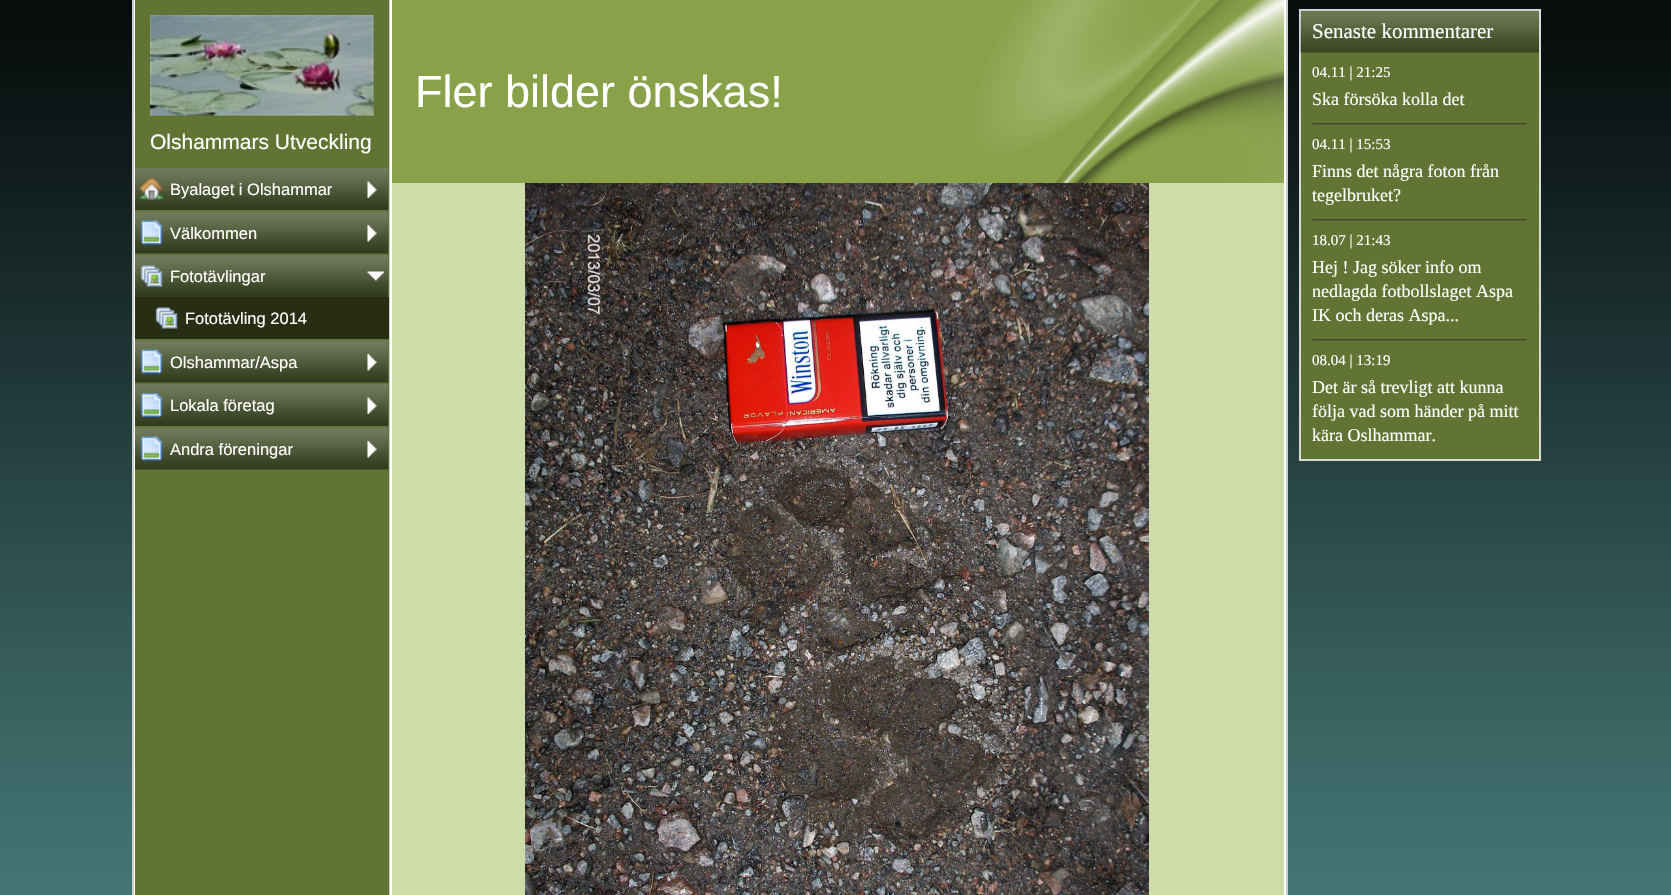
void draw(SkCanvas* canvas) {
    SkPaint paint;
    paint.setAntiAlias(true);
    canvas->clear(0xFF4A817F);
    canvas->drawImageRect(SkImages::DeferredFromEncodedData(SkData::MakeFromFileName("img1.png")), SkRect::MakeXYWH(0, 0, 1671, 895), SkSamplingOptions());
    paint.setColor(0xFFFFFFFF);
    canvas->drawRect(SkRect::MakeXYWH(134, 0, 1152, 895), paint);
    paint.setColor(0xFFCCCCCC);
    canvas->drawRect(SkRect::MakeXYWH(132, 0, 2, 895), paint);
    canvas->drawRect(SkRect::MakeXYWH(389, 0, 1, 895), paint);
    paint.setColor(0xFFCEDCAA);
    canvas->drawRect(SkRect::MakeXYWH(392, 183, 892, 712), paint);
    paint.setColor(0xFF89A249);
    canvas->drawRect(SkRect::MakeXYWH(392, 0, 892, 183), paint);
    SkFont font1(fontMgr->matchFamilyStyle("Liberation Sans", SkFontStyle::Normal()), 45);
    font1.setSubpixel(true);
    paint.setColor(0xFFFFFFFF);
    canvas->drawString("Fler bilder önskas!", 415, 107, font1, paint);
    canvas->drawImageRect(SkImages::DeferredFromEncodedData(SkData::MakeFromFileName("img2.png")), SkRect::MakeXYWH(976, 0, 308, 183), SkSamplingOptions());
    canvas->drawImageRect(SkImages::DeferredFromEncodedData(SkData::MakeFromFileName("img3.png")), SkRect::MakeXYWH(525, 183, 624, 712), SkSamplingOptions());
    paint.setColor(0xFFCCCCCC);
    canvas->drawRect(SkRect::MakeXYWH(1286, 0, 2, 895), paint);
    paint.setColor(0xFF617433);
    canvas->drawRect(SkRect::MakeXYWH(135, 0, 254, 895), paint);
    canvas->drawImageRect(SkImages::DeferredFromEncodedData(SkData::MakeFromFileName("img4.png")), SkRect::MakeXYWH(150, 15, 224, 101), SkSamplingOptions());
    SkFont font2(fontMgr->matchFamilyStyle("Liberation Sans", SkFontStyle::Normal()), 21);
    font2.setSubpixel(true);
    paint.setColor(0xFFFFFFFF);
    canvas->drawString("Olshammars Utveckling", 150, 149, font2, paint);
    canvas->drawImageRect(SkImages::DeferredFromEncodedData(SkData::MakeFromFileName("img5.png")), SkRect::MakeXYWH(135, 168, 254, 42), SkSamplingOptions());
    canvas->drawImageRect(SkImages::DeferredFromEncodedData(SkData::MakeFromFileName("img6.png")), SkRect::MakeXYWH(139, 178, 25, 22), SkSamplingOptions());
    canvas->drawImageRect(SkImages::DeferredFromEncodedData(SkData::MakeFromFileName("img7.png")), SkRect::MakeXYWH(367, 181, 10, 17), SkSamplingOptions());
    SkFont font3(fontMgr->matchFamilyStyle("Liberation Sans", SkFontStyle::Normal()), 16.5f);
    font3.setSubpixel(true);
    canvas->drawString("Byalaget i Olshammar", 170, 195, font3, paint);
    canvas->drawImageRect(SkImages::DeferredFromEncodedData(SkData::MakeFromFileName("img8.png")), SkRect::MakeXYWH(135, 211, 254, 43), SkSamplingOptions());
    canvas->drawImageRect(SkImages::DeferredFromEncodedData(SkData::MakeFromFileName("img9.png")), SkRect::MakeXYWH(140, 220, 23, 25), SkSamplingOptions());
    canvas->drawImageRect(SkImages::DeferredFromEncodedData(SkData::MakeFromFileName("img10.png")), SkRect::MakeXYWH(367, 225, 10, 17), SkSamplingOptions());
    canvas->drawString("Välkommen", 170, 239, font3, paint);
    canvas->drawImageRect(SkImages::DeferredFromEncodedData(SkData::MakeFromFileName("img5.png")), SkRect::MakeXYWH(135, 255, 254, 42), SkSamplingOptions());
    canvas->drawImageRect(SkImages::DeferredFromEncodedData(SkData::MakeFromFileName("img11.png")), SkRect::MakeXYWH(140, 265, 23, 22), SkSamplingOptions());
    canvas->drawImageRect(SkImages::DeferredFromEncodedData(SkData::MakeFromFileName("img12.png")), SkRect::MakeXYWH(367, 271, 17, 10), SkSamplingOptions());
    canvas->drawString("Fototävlingar", 170, 282, font3, paint);
    paint.setColor(0xFF272E14);
    canvas->drawRect(SkRect::MakeXYWH(135, 297, 254, 42), paint);
    canvas->drawImageRect(SkImages::DeferredFromEncodedData(SkData::MakeFromFileName("img13.png")), SkRect::MakeXYWH(155, 307, 23, 22), SkSamplingOptions());
    paint.setColor(0xFFFFFFFF);
    canvas->drawString("Fototävling 2014", 185, 324, font3, paint);
    canvas->drawImageRect(SkImages::DeferredFromEncodedData(SkData::MakeFromFileName("img8.png")), SkRect::MakeXYWH(135, 340, 254, 43), SkSamplingOptions());
    canvas->drawImageRect(SkImages::DeferredFromEncodedData(SkData::MakeFromFileName("img9.png")), SkRect::MakeXYWH(140, 349, 23, 25), SkSamplingOptions());
    canvas->drawImageRect(SkImages::DeferredFromEncodedData(SkData::MakeFromFileName("img10.png")), SkRect::MakeXYWH(367, 354, 10, 17), SkSamplingOptions());
    canvas->drawString("Olshammar/Aspa", 170, 368, font3, paint);
    canvas->drawImageRect(SkImages::DeferredFromEncodedData(SkData::MakeFromFileName("img5.png")), SkRect::MakeXYWH(135, 384, 254, 42), SkSamplingOptions());
    canvas->drawImageRect(SkImages::DeferredFromEncodedData(SkData::MakeFromFileName("img14.png")), SkRect::MakeXYWH(140, 393, 23, 24), SkSamplingOptions());
    canvas->drawImageRect(SkImages::DeferredFromEncodedData(SkData::MakeFromFileName("img7.png")), SkRect::MakeXYWH(367, 397, 10, 17), SkSamplingOptions());
    canvas->drawString("Lokala företag", 170, 411, font3, paint);
    canvas->drawImageRect(SkImages::DeferredFromEncodedData(SkData::MakeFromFileName("img8.png")), SkRect::MakeXYWH(135, 427, 254, 43), SkSamplingOptions());
    canvas->drawImageRect(SkImages::DeferredFromEncodedData(SkData::MakeFromFileName("img9.png")), SkRect::MakeXYWH(140, 436, 23, 25), SkSamplingOptions());
    canvas->drawImageRect(SkImages::DeferredFromEncodedData(SkData::MakeFromFileName("img10.png")), SkRect::MakeXYWH(367, 441, 10, 17), SkSamplingOptions());
    canvas->drawString("Andra föreningar", 170, 455, font3, paint);
    paint.setColor(0xFF617433);
    canvas->drawRect(SkRect::MakeXYWH(1300, 10, 240, 450), paint);
    paint.setStyle(SkPaint::kStroke_Style);
    paint.setStrokeWidth(2);
    paint.setColor(0xFFDADADA);
    canvas->drawRect(SkRect::MakeXYWH(1300, 10, 240, 450), paint);
    canvas->drawImageRect(SkImages::DeferredFromEncodedData(SkData::MakeFromFileName("img15.png")), SkRect::MakeXYWH(1300, 10, 239, 43), SkSamplingOptions());
    SkFont font4(fontMgr->matchFamilyStyle("Liberation Serif", SkFontStyle::Normal()), 21);
    font4.setSubpixel(true);
    paint.setStyle(SkPaint::kFill_Style);
    paint.setColor(0xFFFFFFFF);
    canvas->drawString("Senaste kommentarer", 1312, 38, font4, paint);
    SkFont font5(fontMgr->matchFamilyStyle("Liberation Serif", SkFontStyle::Normal()), 15);
    font5.setSubpixel(true);
    canvas->drawString("04.11 | 21:25", 1312, 77, font5, paint);
    SkFont font6(fontMgr->matchFamilyStyle("Liberation Serif", SkFontStyle::Normal()), 18);
    font6.setSubpixel(true);
    canvas->drawString("Ska försöka kolla det", 1312, 105, font6, paint);
    canvas->drawImageRect(SkImages::DeferredFromEncodedData(SkData::MakeFromFileName("img16.png")), SkRect::MakeXYWH(1312, 123, 215, 2), SkSamplingOptions());
    canvas->drawString("04.11 | 15:53", 1312, 149, font5, paint);
    canvas->drawString("Finns det några foton från", 1312, 177, font6, paint);
    canvas->drawString("tegelbruket?", 1312, 201, font6, paint);
    canvas->drawImageRect(SkImages::DeferredFromEncodedData(SkData::MakeFromFileName("img16.png")), SkRect::MakeXYWH(1312, 219, 215, 2), SkSamplingOptions());
    canvas->drawString("18.07 | 21:43", 1312, 245, font5, paint);
    canvas->drawString("Hej ! Jag söker info om", 1312, 273, font6, paint);
    canvas->save();
    canvas->clipRect(SkRect::MakeXYWH(1313, 255, 214, 72));
    canvas->drawString("nedlagda fotbollslaget Aspa", 1312, 297, font6, paint);
    canvas->restore();
    canvas->drawString("IK och deras Aspa...", 1312, 321, font6, paint);
    canvas->drawImageRect(SkImages::DeferredFromEncodedData(SkData::MakeFromFileName("img16.png")), SkRect::MakeXYWH(1312, 339, 215, 2), SkSamplingOptions());
    canvas->drawString("08.04 | 13:19", 1312, 365, font5, paint);
    canvas->drawString("Det är så trevligt att kunna", 1312, 393, font6, paint);
    canvas->drawString("följa vad som händer på mitt", 1312, 417, font6, paint);
    canvas->drawString("kära Oslhammar.", 1312, 441, font6, paint);
}
